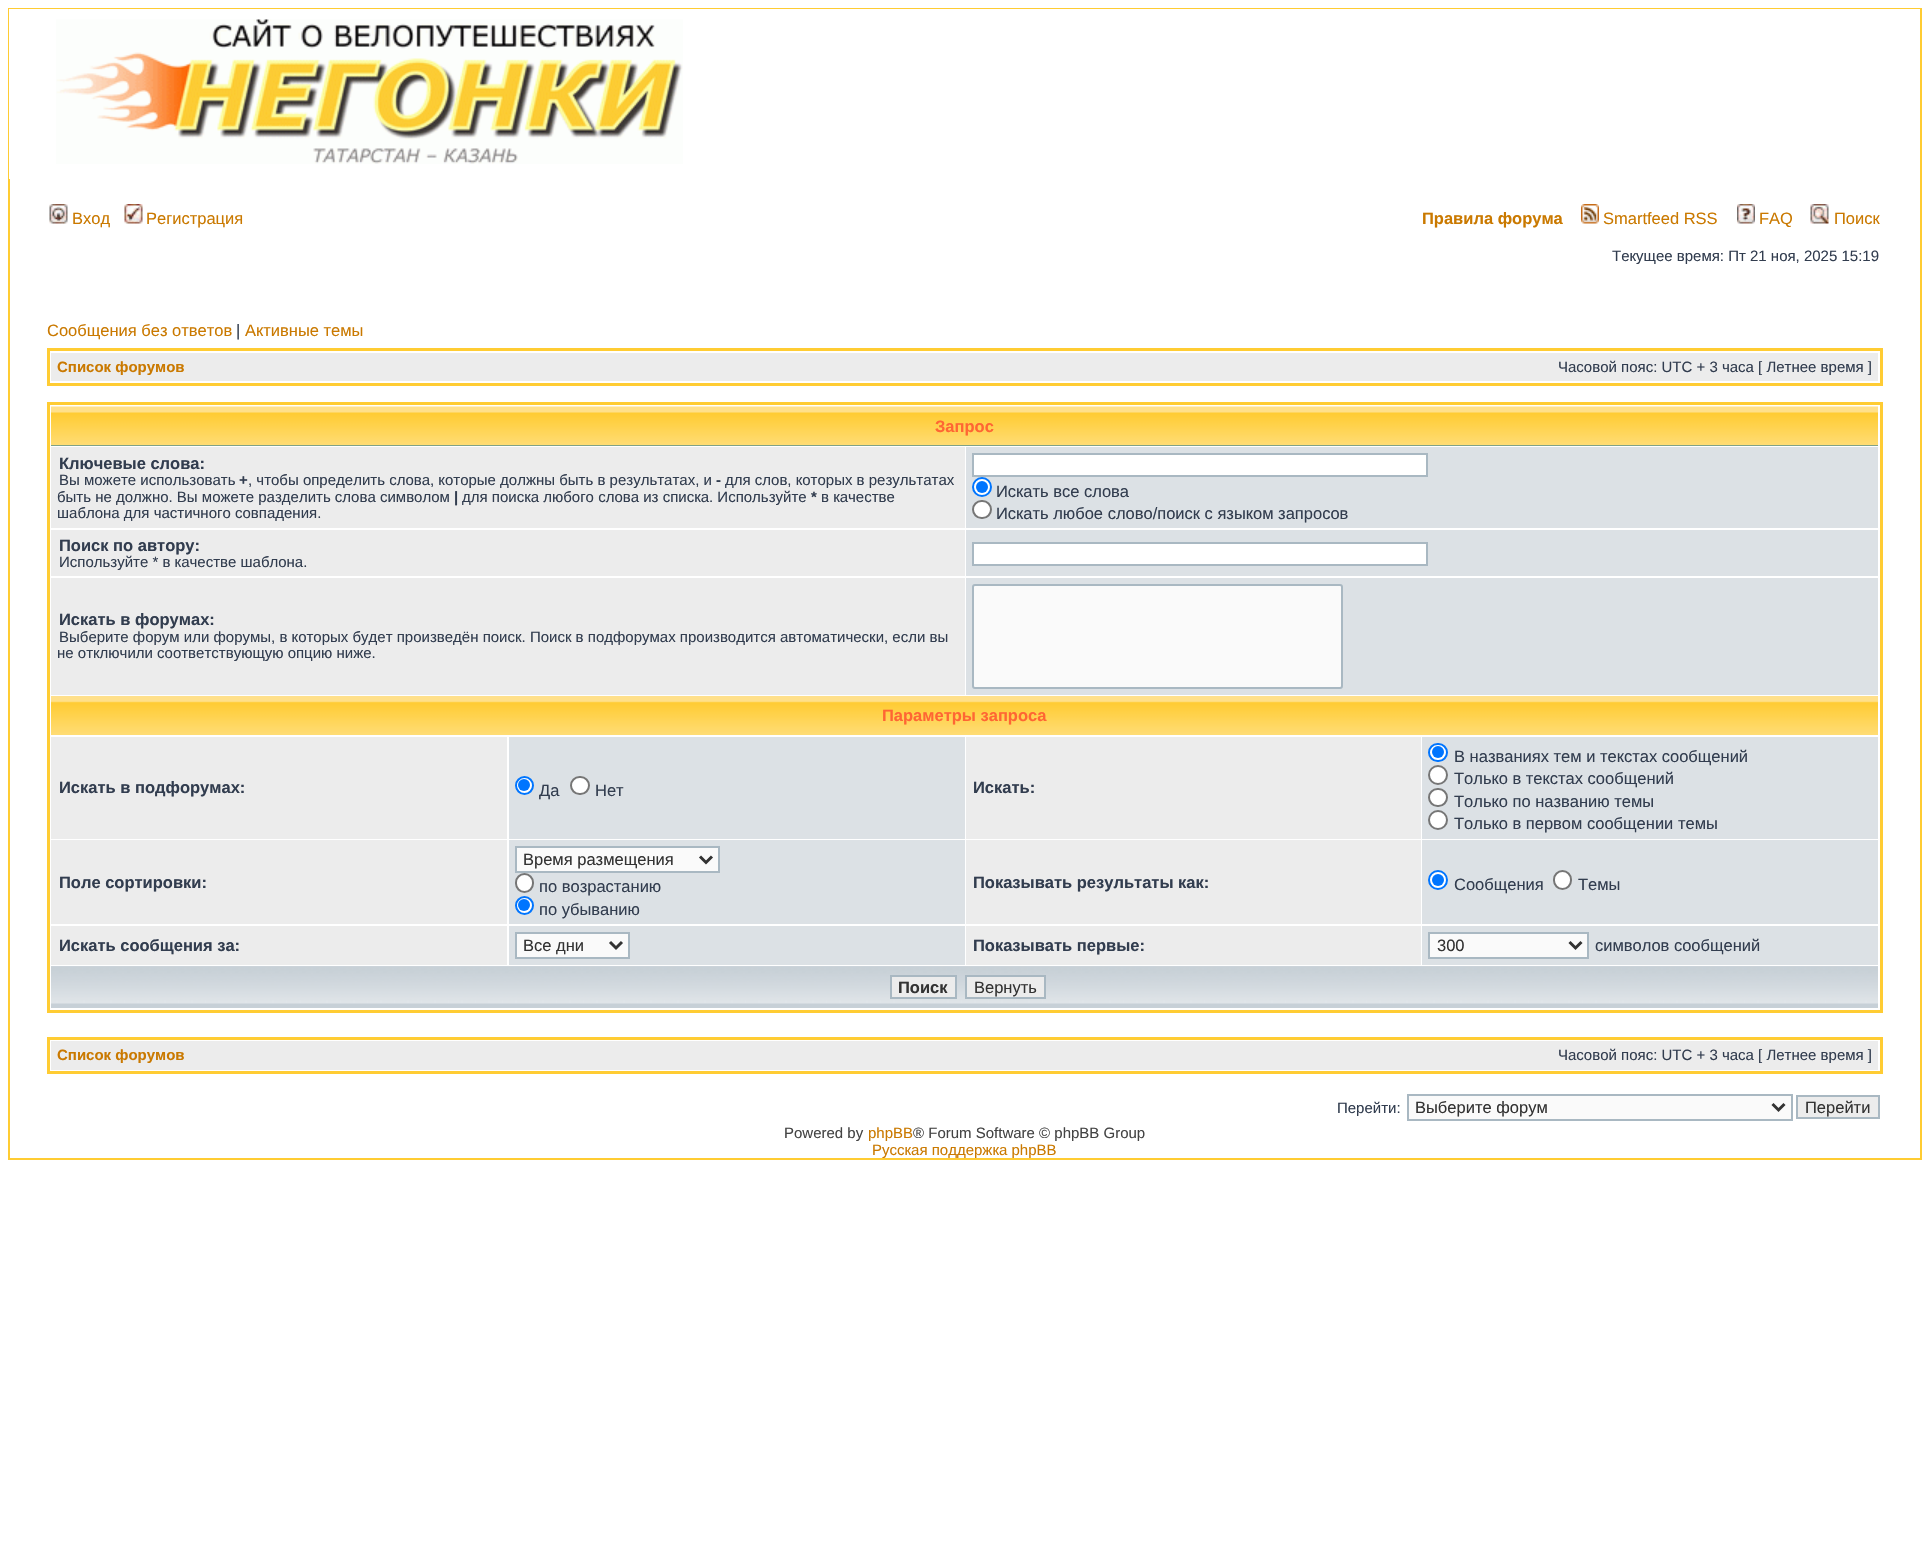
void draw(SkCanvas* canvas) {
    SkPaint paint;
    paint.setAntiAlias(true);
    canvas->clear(0xFFFFFFFF);
    paint.setStyle(SkPaint::kStroke_Style);
    paint.setStrokeWidth(2);
    paint.setColor(0xFFFFCC33);
    canvas->drawRect(SkRect::MakeXYWH(9, 9, 1912, 1150), paint);
    paint.setStyle(SkPaint::kFill_Style);
    paint.setColor(0xFFFFFFFF);
    canvas->drawRect(SkRect::MakeXYWH(9, 9, 1911, 170), paint);
    canvas->drawImageRect(SkImages::DeferredFromEncodedData(SkData::MakeFromFileName("img1.png")), SkRect::MakeXYWH(56, 19, 627, 145), SkSamplingOptions());
    canvas->drawImageRect(SkImages::DeferredFromEncodedData(SkData::MakeFromFileName("img2.png")), SkRect::MakeXYWH(49, 204, 19, 20), SkSamplingOptions());
    SkFont font1(fontMgr->matchFamilyStyle("Liberation Sans", SkFontStyle::Normal()), 16.5f);
    font1.setSubpixel(true);
    paint.setColor(0xFFCA7900);
    canvas->drawString("Вход", 72, 224, font1, paint);
    canvas->drawImageRect(SkImages::DeferredFromEncodedData(SkData::MakeFromFileName("img3.png")), SkRect::MakeXYWH(124, 204, 19, 20), SkSamplingOptions());
    canvas->drawString("Регистрация", 146, 224, font1, paint);
    SkFont font2(fontMgr->matchFamilyStyle("Liberation Sans", SkFontStyle::Bold()), 16.5f);
    font2.setSubpixel(true);
    canvas->drawString("Правила форума", 1422, 224, font2, paint);
    canvas->drawImageRect(SkImages::DeferredFromEncodedData(SkData::MakeFromFileName("img4.png")), SkRect::MakeXYWH(1581, 204, 18, 20), SkSamplingOptions());
    canvas->drawString("Smartfeed RSS", 1603, 224, font1, paint);
    canvas->drawImageRect(SkImages::DeferredFromEncodedData(SkData::MakeFromFileName("img5.png")), SkRect::MakeXYWH(1737, 204, 18, 20), SkSamplingOptions());
    canvas->drawString("FAQ", 1759, 224, font1, paint);
    canvas->drawImageRect(SkImages::DeferredFromEncodedData(SkData::MakeFromFileName("img6.png")), SkRect::MakeXYWH(1810, 204, 19, 20), SkSamplingOptions());
    canvas->drawString("Поиск", 1834, 224, font1, paint);
    SkFont font3(fontMgr->matchFamilyStyle("Liberation Sans", SkFontStyle::Normal()), 15);
    font3.setSubpixel(true);
    paint.setColor(0xFF323D4F);
    canvas->drawString("Текущее время: Пт 21 ноя, 2025 15:19", 1612, 261, font3, paint);
    paint.setColor(0xFFCA7900);
    canvas->drawString("Сообщения без ответов", 47, 336, font1, paint);
    paint.setColor(0xFF323D4F);
    canvas->drawString("|", 236, 336, font1, paint);
    paint.setColor(0xFFCA7900);
    canvas->drawString("Активные темы", 245, 336, font1, paint);
    paint.setStyle(SkPaint::kStroke_Style);
    paint.setStrokeWidth(3);
    paint.setColor(0xFFFFCC33);
    canvas->drawRect(SkRect::MakeXYWH(48.5f, 349.5f, 1833, 35), paint);
    paint.setStyle(SkPaint::kFill_Style);
    paint.setColor(0xFFECECEC);
    canvas->drawRect(SkRect::MakeXYWH(51, 353, 1827, 28), paint);
    SkFont font4(fontMgr->matchFamilyStyle("Liberation Sans", SkFontStyle::Bold()), 15);
    font4.setSubpixel(true);
    paint.setColor(0xFFCA7900);
    canvas->drawString("Список форумов", 57, 372, font4, paint);
    paint.setColor(0xFF323D4F);
    canvas->drawString("Часовой пояс: UTC + 3 часа [ Летнее время ]", 1558, 372, font3, paint);
    paint.setStyle(SkPaint::kStroke_Style);
    paint.setColor(0xFFFFCC33);
    canvas->drawRect(SkRect::MakeXYWH(48.5f, 403.5f, 1833, 608), paint);
    paint.setStyle(SkPaint::kFill_Style);
    paint.setColor(0xFF006699);
    canvas->drawRect(SkRect::MakeXYWH(51, 445, 1827, 1), paint);
    canvas->drawImageRect(SkImages::DeferredFromEncodedData(SkData::MakeFromFileName("img7.png")), SkRect::MakeXYWH(51, 406, 1827, 40), SkSamplingOptions());
    paint.setColor(0xFFFF6633);
    canvas->drawString("Запрос", 935, 432, font2, paint);
    paint.setColor(0xFFECECEC);
    canvas->drawRect(SkRect::MakeXYWH(51, 447, 914, 81), paint);
    paint.setColor(0xFF323D4F);
    canvas->drawString("Ключевые слова:", 59, 469, font2, paint);
    canvas->drawString("Вы можете использовать", 59, 485, font3, paint);
    canvas->drawString("+", 239, 485, font4, paint);
    canvas->drawString(", чтобы определить слова, которые должны быть в результатах, и", 248, 485, font3, paint);
    canvas->drawString("-", 716, 485, font4, paint);
    canvas->drawString("для слов, которых в результатах", 725, 485, font3, paint);
    canvas->drawString("быть не должно. Вы можете разделить слова символом", 57, 502, font3, paint);
    canvas->drawString("|", 454, 502, font4, paint);
    canvas->drawString("для поиска любого слова из списка. Используйте", 462, 502, font3, paint);
    canvas->drawString("*", 811, 502, font4, paint);
    canvas->drawString("в качестве", 821, 502, font3, paint);
    canvas->drawString("шаблона для частичного совпадения.", 57, 518, font3, paint);
    paint.setColor(0xFFDCE1E5);
    canvas->drawRect(SkRect::MakeXYWH(966, 447, 912, 81), paint);
    paint.setColor(0xFFFFFFFF);
    canvas->drawRect(SkRect::MakeXYWH(973, 454, 454, 22), paint);
    paint.setStyle(SkPaint::kStroke_Style);
    paint.setStrokeWidth(2);
    paint.setColor(0xFFA9B8C2);
    canvas->drawRect(SkRect::MakeXYWH(973, 454, 454, 22), paint);
    paint.setStyle(SkPaint::kFill_Style);
    paint.setColor(0xFFFFFFFF);
    canvas->drawCircle(982, 487, 9, paint);
    paint.setStyle(SkPaint::kStroke_Style);
    paint.setColor(0xFF0075FF);
    canvas->drawCircle(982, 487, 9, paint);
    paint.setStyle(SkPaint::kFill_Style);
    canvas->drawCircle(982, 487, 6, paint);
    paint.setColor(0xFF323D4F);
    canvas->drawString("Искать все слова", 996, 497, font1, paint);
    paint.setColor(0xFFFFFFFF);
    canvas->drawRoundRect(SkRect::MakeXYWH(973, 501, 18, 17), 8.5f, 8.5f, paint);
    paint.setStyle(SkPaint::kStroke_Style);
    paint.setColor(0xFF767676);
    canvas->drawRoundRect(SkRect::MakeXYWH(973, 501, 18, 17), 8.5f, 8.5f, paint);
    paint.setStyle(SkPaint::kFill_Style);
    paint.setColor(0xFF323D4F);
    canvas->drawString("Искать любое слово/поиск с языком запросов", 996, 519, font1, paint);
    paint.setColor(0xFFECECEC);
    canvas->drawRect(SkRect::MakeXYWH(51, 530, 914, 46), paint);
    paint.setColor(0xFF323D4F);
    canvas->drawString("Поиск по автору:", 59, 551, font2, paint);
    canvas->drawString("Используйте * в качестве шаблона.", 59, 567, font3, paint);
    paint.setColor(0xFFDCE1E5);
    canvas->drawRect(SkRect::MakeXYWH(966, 530, 912, 46), paint);
    paint.setColor(0xFFFFFFFF);
    canvas->drawRect(SkRect::MakeXYWH(973, 543, 454, 22), paint);
    paint.setStyle(SkPaint::kStroke_Style);
    paint.setColor(0xFFA9B8C2);
    canvas->drawRect(SkRect::MakeXYWH(973, 543, 454, 22), paint);
    paint.setStyle(SkPaint::kFill_Style);
    paint.setColor(0xFFECECEC);
    canvas->drawRect(SkRect::MakeXYWH(51, 578, 914, 117), paint);
    paint.setColor(0xFF323D4F);
    canvas->drawString("Искать в форумах:", 59, 625, font2, paint);
    canvas->drawString("Выберите форум или форумы, в которых будет произведён поиск. Поиск в подфорумах производится автоматически, если вы", 59, 642, font3, paint);
    canvas->drawString("не отключили соответствующую опцию ниже.", 57, 658, font3, paint);
    paint.setColor(0xFFDCE1E5);
    canvas->drawRect(SkRect::MakeXYWH(966, 578, 912, 117), paint);
    paint.setColor(0xFFFAFAFA);
    canvas->drawRoundRect(SkRect::MakeXYWH(973, 585, 369, 103), 2, 2, paint);
    paint.setStyle(SkPaint::kStroke_Style);
    paint.setColor(0xFFA9B8C2);
    canvas->drawRoundRect(SkRect::MakeXYWH(973, 585, 369, 103), 2, 2, paint);
    canvas->drawImageRect(SkImages::DeferredFromEncodedData(SkData::MakeFromFileName("img8.png")), SkRect::MakeXYWH(51, 696, 1827, 39), SkSamplingOptions());
    paint.setStyle(SkPaint::kFill_Style);
    paint.setColor(0xFFFF6633);
    canvas->drawString("Параметры запроса", 882, 721, font2, paint);
    paint.setColor(0xFFECECEC);
    canvas->drawRect(SkRect::MakeXYWH(51, 737, 456, 102), paint);
    paint.setColor(0xFF323D4F);
    canvas->drawString("Искать в подфорумах:", 59, 793, font2, paint);
    paint.setColor(0xFFDCE1E5);
    canvas->drawRect(SkRect::MakeXYWH(509, 737, 456, 102), paint);
    paint.setColor(0xFFFFFFFF);
    canvas->drawCircle(524.5f, 785.5f, 8.5f, paint);
    paint.setStyle(SkPaint::kStroke_Style);
    paint.setColor(0xFF0075FF);
    canvas->drawCircle(524.5f, 785.5f, 8.5f, paint);
    paint.setStyle(SkPaint::kFill_Style);
    canvas->drawCircle(524, 785, 6, paint);
    paint.setColor(0xFF323D4F);
    canvas->drawString("Да", 539, 796, font1, paint);
    paint.setColor(0xFFFFFFFF);
    canvas->drawRoundRect(SkRect::MakeXYWH(571, 777, 18, 17), 8.5f, 8.5f, paint);
    paint.setStyle(SkPaint::kStroke_Style);
    paint.setColor(0xFF767676);
    canvas->drawRoundRect(SkRect::MakeXYWH(571, 777, 18, 17), 8.5f, 8.5f, paint);
    paint.setStyle(SkPaint::kFill_Style);
    paint.setColor(0xFF323D4F);
    canvas->drawString("Нет", 595, 796, font1, paint);
    paint.setColor(0xFFECECEC);
    canvas->drawRect(SkRect::MakeXYWH(966, 737, 455, 102), paint);
    paint.setColor(0xFF323D4F);
    canvas->drawString("Искать:", 973, 793, font2, paint);
    paint.setColor(0xFFDCE1E5);
    canvas->drawRect(SkRect::MakeXYWH(1422, 737, 456, 102), paint);
    paint.setColor(0xFFFFFFFF);
    canvas->drawRoundRect(SkRect::MakeXYWH(1429, 744, 18, 17), 8.5f, 8.5f, paint);
    paint.setStyle(SkPaint::kStroke_Style);
    paint.setColor(0xFF0075FF);
    canvas->drawRoundRect(SkRect::MakeXYWH(1429, 744, 18, 17), 8.5f, 8.5f, paint);
    paint.setStyle(SkPaint::kFill_Style);
    canvas->drawCircle(1438, 752, 6, paint);
    paint.setColor(0xFF323D4F);
    canvas->drawString("В названиях тем и текстах сообщений", 1454, 762, font1, paint);
    paint.setColor(0xFFFFFFFF);
    canvas->drawCircle(1438, 775, 9, paint);
    paint.setStyle(SkPaint::kStroke_Style);
    paint.setColor(0xFF767676);
    canvas->drawCircle(1438, 775, 9, paint);
    paint.setStyle(SkPaint::kFill_Style);
    paint.setColor(0xFF323D4F);
    canvas->drawString("Только в текстах сообщений", 1454, 784, font1, paint);
    paint.setColor(0xFFFFFFFF);
    canvas->drawRoundRect(SkRect::MakeXYWH(1429, 789, 18, 17), 8.5f, 8.5f, paint);
    paint.setStyle(SkPaint::kStroke_Style);
    paint.setColor(0xFF767676);
    canvas->drawRoundRect(SkRect::MakeXYWH(1429, 789, 18, 17), 8.5f, 8.5f, paint);
    paint.setStyle(SkPaint::kFill_Style);
    paint.setColor(0xFF323D4F);
    canvas->drawString("Только по названию темы", 1454, 807, font1, paint);
    paint.setColor(0xFFFFFFFF);
    canvas->drawCircle(1438, 820, 9, paint);
    paint.setStyle(SkPaint::kStroke_Style);
    paint.setColor(0xFF767676);
    canvas->drawCircle(1438, 820, 9, paint);
    paint.setStyle(SkPaint::kFill_Style);
    paint.setColor(0xFF323D4F);
    canvas->drawString("Только в первом сообщении темы", 1454, 829, font1, paint);
    paint.setColor(0xFFECECEC);
    canvas->drawRect(SkRect::MakeXYWH(51, 840, 456, 84), paint);
    paint.setColor(0xFF323D4F);
    canvas->drawString("Поле сортировки:", 59, 888, font2, paint);
    paint.setColor(0xFFDCE1E5);
    canvas->drawRect(SkRect::MakeXYWH(509, 840, 456, 84), paint);
    paint.setColor(0xFFFAFAFA);
    canvas->drawRect(SkRect::MakeXYWH(516, 847, 203, 25), paint);
    paint.setStyle(SkPaint::kStroke_Style);
    paint.setColor(0xFFA9B8C2);
    canvas->drawRect(SkRect::MakeXYWH(516, 847, 203, 25), paint);
    paint.setStrokeWidth(3);
    paint.setColor(0xFF333333);
    canvas->drawPath(SkPathBuilder().moveTo(700, 856.5f).lineTo(706, 862.5f).lineTo(712, 856.5f).detach(), paint);
    paint.setStyle(SkPaint::kFill_Style);
    canvas->drawString("Время размещения", 523, 865, font1, paint);
    paint.setColor(0xFFFFFFFF);
    canvas->drawRoundRect(SkRect::MakeXYWH(516, 874, 17, 18), 8.5f, 8.5f, paint);
    paint.setStyle(SkPaint::kStroke_Style);
    paint.setStrokeWidth(2);
    paint.setColor(0xFF767676);
    canvas->drawRoundRect(SkRect::MakeXYWH(516, 874, 17, 18), 8.5f, 8.5f, paint);
    paint.setStyle(SkPaint::kFill_Style);
    paint.setColor(0xFF323D4F);
    canvas->drawString("по возрастанию", 539, 892, font1, paint);
    paint.setColor(0xFFFFFFFF);
    canvas->drawCircle(524.5f, 905.5f, 8.5f, paint);
    paint.setStyle(SkPaint::kStroke_Style);
    paint.setColor(0xFF0075FF);
    canvas->drawCircle(524.5f, 905.5f, 8.5f, paint);
    paint.setStyle(SkPaint::kFill_Style);
    canvas->drawCircle(524, 905, 6, paint);
    paint.setColor(0xFF323D4F);
    canvas->drawString("по убыванию", 539, 915, font1, paint);
    paint.setColor(0xFFECECEC);
    canvas->drawRect(SkRect::MakeXYWH(966, 840, 455, 84), paint);
    paint.setColor(0xFF323D4F);
    canvas->drawString("Показывать результаты как:", 973, 888, font2, paint);
    paint.setColor(0xFFDCE1E5);
    canvas->drawRect(SkRect::MakeXYWH(1422, 840, 456, 84), paint);
    paint.setColor(0xFFFFFFFF);
    canvas->drawCircle(1438, 880, 9, paint);
    paint.setStyle(SkPaint::kStroke_Style);
    paint.setColor(0xFF0075FF);
    canvas->drawCircle(1438, 880, 9, paint);
    paint.setStyle(SkPaint::kFill_Style);
    canvas->drawCircle(1438, 880, 6, paint);
    paint.setColor(0xFF323D4F);
    canvas->drawString("Сообщения", 1454, 890, font1, paint);
    paint.setColor(0xFFFFFFFF);
    canvas->drawRoundRect(SkRect::MakeXYWH(1554, 871, 17, 18), 8.5f, 8.5f, paint);
    paint.setStyle(SkPaint::kStroke_Style);
    paint.setColor(0xFF767676);
    canvas->drawRoundRect(SkRect::MakeXYWH(1554, 871, 17, 18), 8.5f, 8.5f, paint);
    paint.setStyle(SkPaint::kFill_Style);
    paint.setColor(0xFF323D4F);
    canvas->drawString("Темы", 1578, 890, font1, paint);
    paint.setColor(0xFFECECEC);
    canvas->drawRect(SkRect::MakeXYWH(51, 926, 456, 39), paint);
    paint.setColor(0xFF323D4F);
    canvas->drawString("Искать сообщения за:", 59, 951, font2, paint);
    paint.setColor(0xFFDCE1E5);
    canvas->drawRect(SkRect::MakeXYWH(509, 926, 456, 39), paint);
    paint.setColor(0xFFFAFAFA);
    canvas->drawRect(SkRect::MakeXYWH(516, 933, 113, 25), paint);
    paint.setStyle(SkPaint::kStroke_Style);
    paint.setColor(0xFFA9B8C2);
    canvas->drawRect(SkRect::MakeXYWH(516, 933, 113, 25), paint);
    paint.setStrokeWidth(3);
    paint.setColor(0xFF333333);
    canvas->drawPath(SkPathBuilder().moveTo(610, 942).lineTo(616, 948).lineTo(622, 942).detach(), paint);
    paint.setStyle(SkPaint::kFill_Style);
    canvas->drawString("Все дни", 523, 951, font1, paint);
    paint.setColor(0xFFECECEC);
    canvas->drawRect(SkRect::MakeXYWH(966, 926, 455, 39), paint);
    paint.setColor(0xFF323D4F);
    canvas->drawString("Показывать первые:", 973, 951, font2, paint);
    paint.setColor(0xFFDCE1E5);
    canvas->drawRect(SkRect::MakeXYWH(1422, 926, 456, 39), paint);
    paint.setColor(0xFFFAFAFA);
    canvas->drawRect(SkRect::MakeXYWH(1429, 933, 159, 25), paint);
    paint.setStyle(SkPaint::kStroke_Style);
    paint.setStrokeWidth(2);
    paint.setColor(0xFFA9B8C2);
    canvas->drawRect(SkRect::MakeXYWH(1429, 933, 159, 25), paint);
    paint.setStrokeWidth(3);
    paint.setColor(0xFF333333);
    canvas->drawPath(SkPathBuilder().moveTo(1569.5f, 942).lineTo(1575.5f, 948).lineTo(1581.5f, 942).detach(), paint);
    paint.setStyle(SkPaint::kFill_Style);
    canvas->drawString("300", 1437, 951, font1, paint);
    paint.setColor(0xFF323D4F);
    canvas->drawString("символов сообщений", 1595, 951, font1, paint);
    paint.setColor(0xFFC7D0D7);
    canvas->drawRect(SkRect::MakeXYWH(51, 1004, 1827, 4), paint);
    canvas->drawImageRect(SkImages::DeferredFromEncodedData(SkData::MakeFromFileName("img9.png")), SkRect::MakeXYWH(51, 966, 1827, 38), SkSamplingOptions());
    paint.setColor(0xFFECECEC);
    canvas->drawRect(SkRect::MakeXYWH(891, 976, 65, 22), paint);
    paint.setStyle(SkPaint::kStroke_Style);
    paint.setStrokeWidth(2);
    paint.setColor(0xFFA9B8C2);
    canvas->drawRect(SkRect::MakeXYWH(891, 976, 65, 22), paint);
    paint.setStyle(SkPaint::kFill_Style);
    paint.setColor(0xFF333333);
    canvas->drawString("Поиск", 898, 993, font2, paint);
    paint.setColor(0xFFECECEC);
    canvas->drawRect(SkRect::MakeXYWH(966, 976, 79, 22), paint);
    paint.setStyle(SkPaint::kStroke_Style);
    paint.setColor(0xFFA9B8C2);
    canvas->drawRect(SkRect::MakeXYWH(966, 976, 79, 22), paint);
    paint.setStyle(SkPaint::kFill_Style);
    paint.setColor(0xFF333333);
    canvas->drawString("Вернуть", 974, 993, font1, paint);
    paint.setStyle(SkPaint::kStroke_Style);
    paint.setStrokeWidth(3);
    paint.setColor(0xFFFFCC33);
    canvas->drawRect(SkRect::MakeXYWH(48.5f, 1038.5f, 1833, 34), paint);
    paint.setStyle(SkPaint::kFill_Style);
    paint.setColor(0xFFECECEC);
    canvas->drawRect(SkRect::MakeXYWH(51, 1041, 1827, 29), paint);
    paint.setColor(0xFFCA7900);
    canvas->drawString("Список форумов", 57, 1060, font4, paint);
    paint.setColor(0xFF323D4F);
    canvas->drawString("Часовой пояс: UTC + 3 часа [ Летнее время ]", 1558, 1060, font3, paint);
    canvas->drawString("Перейти:", 1337, 1113, font3, paint);
    paint.setColor(0xFFFAFAFA);
    canvas->drawRect(SkRect::MakeXYWH(1408, 1095, 384, 25), paint);
    paint.setStyle(SkPaint::kStroke_Style);
    paint.setStrokeWidth(2);
    paint.setColor(0xFFA9B8C2);
    canvas->drawRect(SkRect::MakeXYWH(1408, 1095, 384, 25), paint);
    paint.setStrokeWidth(3);
    paint.setColor(0xFF333333);
    canvas->drawPath(SkPathBuilder().moveTo(1772.5f, 1104).lineTo(1778.5f, 1110).lineTo(1784.5f, 1104).detach(), paint);
    paint.setStyle(SkPaint::kFill_Style);
    canvas->drawString("Выберите форум", 1415, 1113, font1, paint);
    paint.setColor(0xFFECECEC);
    canvas->drawRect(SkRect::MakeXYWH(1797, 1096, 82, 22), paint);
    paint.setStyle(SkPaint::kStroke_Style);
    paint.setStrokeWidth(2);
    paint.setColor(0xFFA9B8C2);
    canvas->drawRect(SkRect::MakeXYWH(1797, 1096, 82, 22), paint);
    paint.setStyle(SkPaint::kFill_Style);
    paint.setColor(0xFF333333);
    canvas->drawString("Перейти", 1805, 1113, font1, paint);
    paint.setColor(0xFF444444);
    canvas->drawString("Powered by", 784, 1138, font3, paint);
    paint.setColor(0xFFCA7900);
    canvas->drawString("phpBB", 868, 1138, font3, paint);
    paint.setColor(0xFF444444);
    canvas->drawString("® Forum Software © phpBB Group", 913, 1138, font3, paint);
    paint.setColor(0xFFCA7900);
    canvas->drawString("Русская поддержка phpBB", 872, 1155, font3, paint);
}
